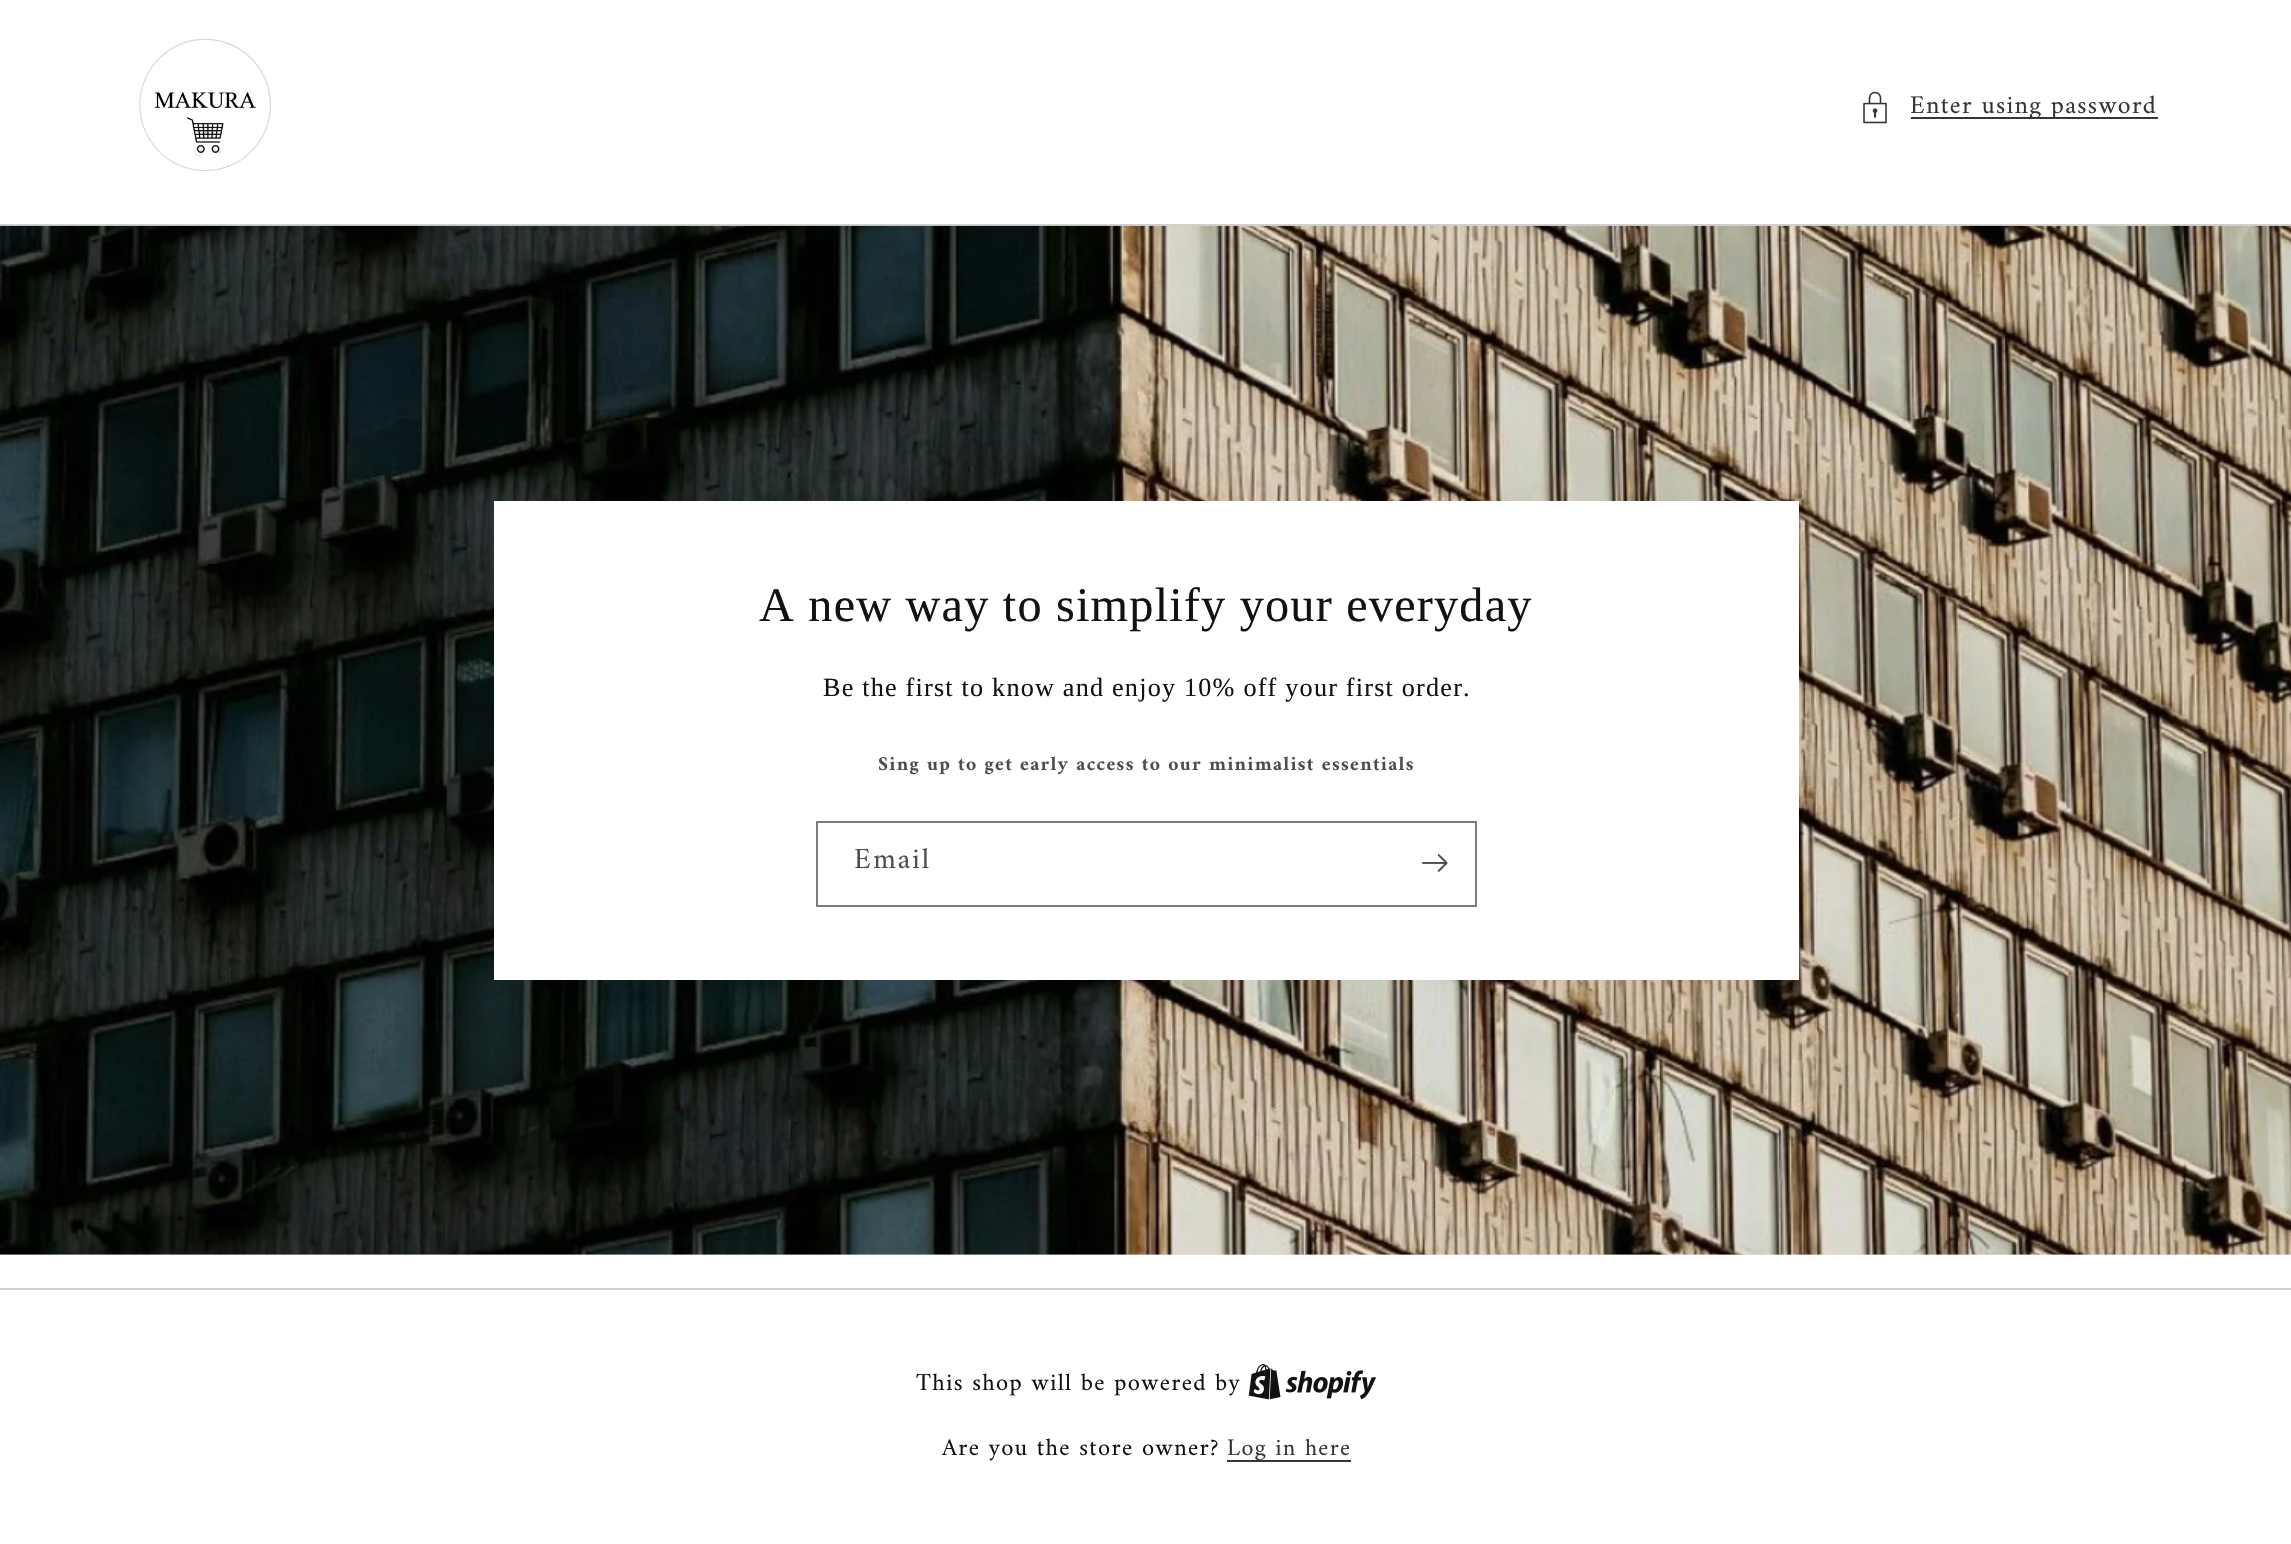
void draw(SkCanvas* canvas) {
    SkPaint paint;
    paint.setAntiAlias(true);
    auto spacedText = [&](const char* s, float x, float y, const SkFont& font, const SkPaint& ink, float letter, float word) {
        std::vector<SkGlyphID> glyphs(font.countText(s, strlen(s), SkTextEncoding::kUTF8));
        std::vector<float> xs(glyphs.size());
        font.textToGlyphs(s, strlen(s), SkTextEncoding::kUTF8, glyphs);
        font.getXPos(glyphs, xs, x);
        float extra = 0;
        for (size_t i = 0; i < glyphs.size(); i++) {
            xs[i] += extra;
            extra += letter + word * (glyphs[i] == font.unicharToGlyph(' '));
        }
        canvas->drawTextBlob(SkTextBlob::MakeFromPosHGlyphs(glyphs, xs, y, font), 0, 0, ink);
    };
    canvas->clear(0xFFFFFFFF);
    canvas->drawImageRect(SkImages::DeferredFromEncodedData(SkData::MakeFromFileName("img1.png")), SkRect::MakeXYWH(139, 38, 132, 133), SkSamplingOptions());
    canvas->drawImageRect(SkImages::DeferredFromEncodedData(SkData::MakeFromFileName("img2.png")), SkRect::MakeXYWH(1863, 91, 24, 33), SkSamplingOptions());
    paint.setColor(0xFF363636);
    canvas->drawRect(SkRect::MakeXYWH(1911, 117, 247, 2), paint);
    SkFont font1(fontMgr->matchFamilyStyle("Amiri", SkFontStyle::Normal()), 25.75f);
    font1.setSubpixel(true);
    paint.setColor(0xFF353535);
    spacedText("Enter using password", 1910, 113, font1, paint, 1.3f, 0);
    paint.setColor(0xFFD0D0D0);
    canvas->drawRect(SkRect::MakeXYWH(0, 224, 2291, 2), paint);
    paint.setColor(0xFFE8E8E8);
    canvas->drawRect(SkRect::MakeXYWH(0, 1254, 2291, 1), paint);
    canvas->drawImageRect(SkImages::DeferredFromEncodedData(SkData::MakeFromFileName("img3.png")), SkRect::MakeXYWH(0, 225, 2291, 1030), SkSamplingOptions());
    paint.setColor(0xFFFFFFFF);
    canvas->drawRect(SkRect::MakeXYWH(494, 501, 1305, 479), paint);
    SkFont font2(fontMgr->matchFamilyStyle("Liberation Serif", SkFontStyle::Normal()), 48.25f);
    font2.setSubpixel(true);
    paint.setColor(0xFF121212);
    spacedText("A new way to simplify your everyday", 759, 621, font2, paint, 1.2f, 0);
    SkFont font3(fontMgr->matchFamilyStyle("Liberation Serif", SkFontStyle::Normal()), 26.2f);
    font3.setSubpixel(true);
    spacedText("Be the first to know and enjoy 10% off your first order.", 823, 696, font3, paint, 1.2f, 0);
    SkFont font4(fontMgr->matchFamilyStyle("Amiri", SkFontStyle::Bold()), 19.7f);
    font4.setSubpixel(true);
    paint.setColor(0xFF4D4D4D);
    spacedText("Sing up to get early access to our minimalist essentials", 878, 770, font4, paint, 1.3f, 0);
    paint.setStyle(SkPaint::kStroke_Style);
    paint.setStrokeWidth(2);
    paint.setColor(0xFF7D7D7D);
    canvas->drawRect(SkRect::MakeXYWH(817, 822, 659, 84), paint);
    SkFont font5(fontMgr->matchFamilyStyle("Amiri", SkFontStyle::Normal()), 29.5f);
    font5.setSubpixel(true);
    paint.setStyle(SkPaint::kFill_Style);
    paint.setColor(0xFF4D4D4D);
    spacedText("Email", 854, 868, font5, paint, 2, 0);
    canvas->drawImageRect(SkImages::DeferredFromEncodedData(SkData::MakeFromFileName("img4.png")), SkRect::MakeXYWH(1422, 854, 26, 18), SkSamplingOptions());
    paint.setColor(0xFFD0D0D0);
    canvas->drawRect(SkRect::MakeXYWH(0, 1288, 2291, 2), paint);
    SkFont font6(fontMgr->matchFamilyStyle("Amiri", SkFontStyle::Normal()), 24.5f);
    font6.setSubpixel(true);
    paint.setColor(0xFF121212);
    spacedText("This shop will be powered by", 916, 1390, font6, paint, 1.3f, 0);
    canvas->drawImageRect(SkImages::DeferredFromEncodedData(SkData::MakeFromFileName("img5.png")), SkRect::MakeXYWH(1248, 1364, 129, 36), SkSamplingOptions());
    spacedText("Are you the store owner?", 942, 1455, font6, paint, 1.3f, 0);
    paint.setColor(0xFF363636);
    canvas->drawRect(SkRect::MakeXYWH(1227, 1460, 124, 2), paint);
    SkFont font7(fontMgr->matchFamilyStyle("Amiri", SkFontStyle::Normal()), 24);
    font7.setSubpixel(true);
    paint.setColor(0xFF353535);
    spacedText("Log in here", 1227, 1455, font7, paint, 1.3f, 0);
}
